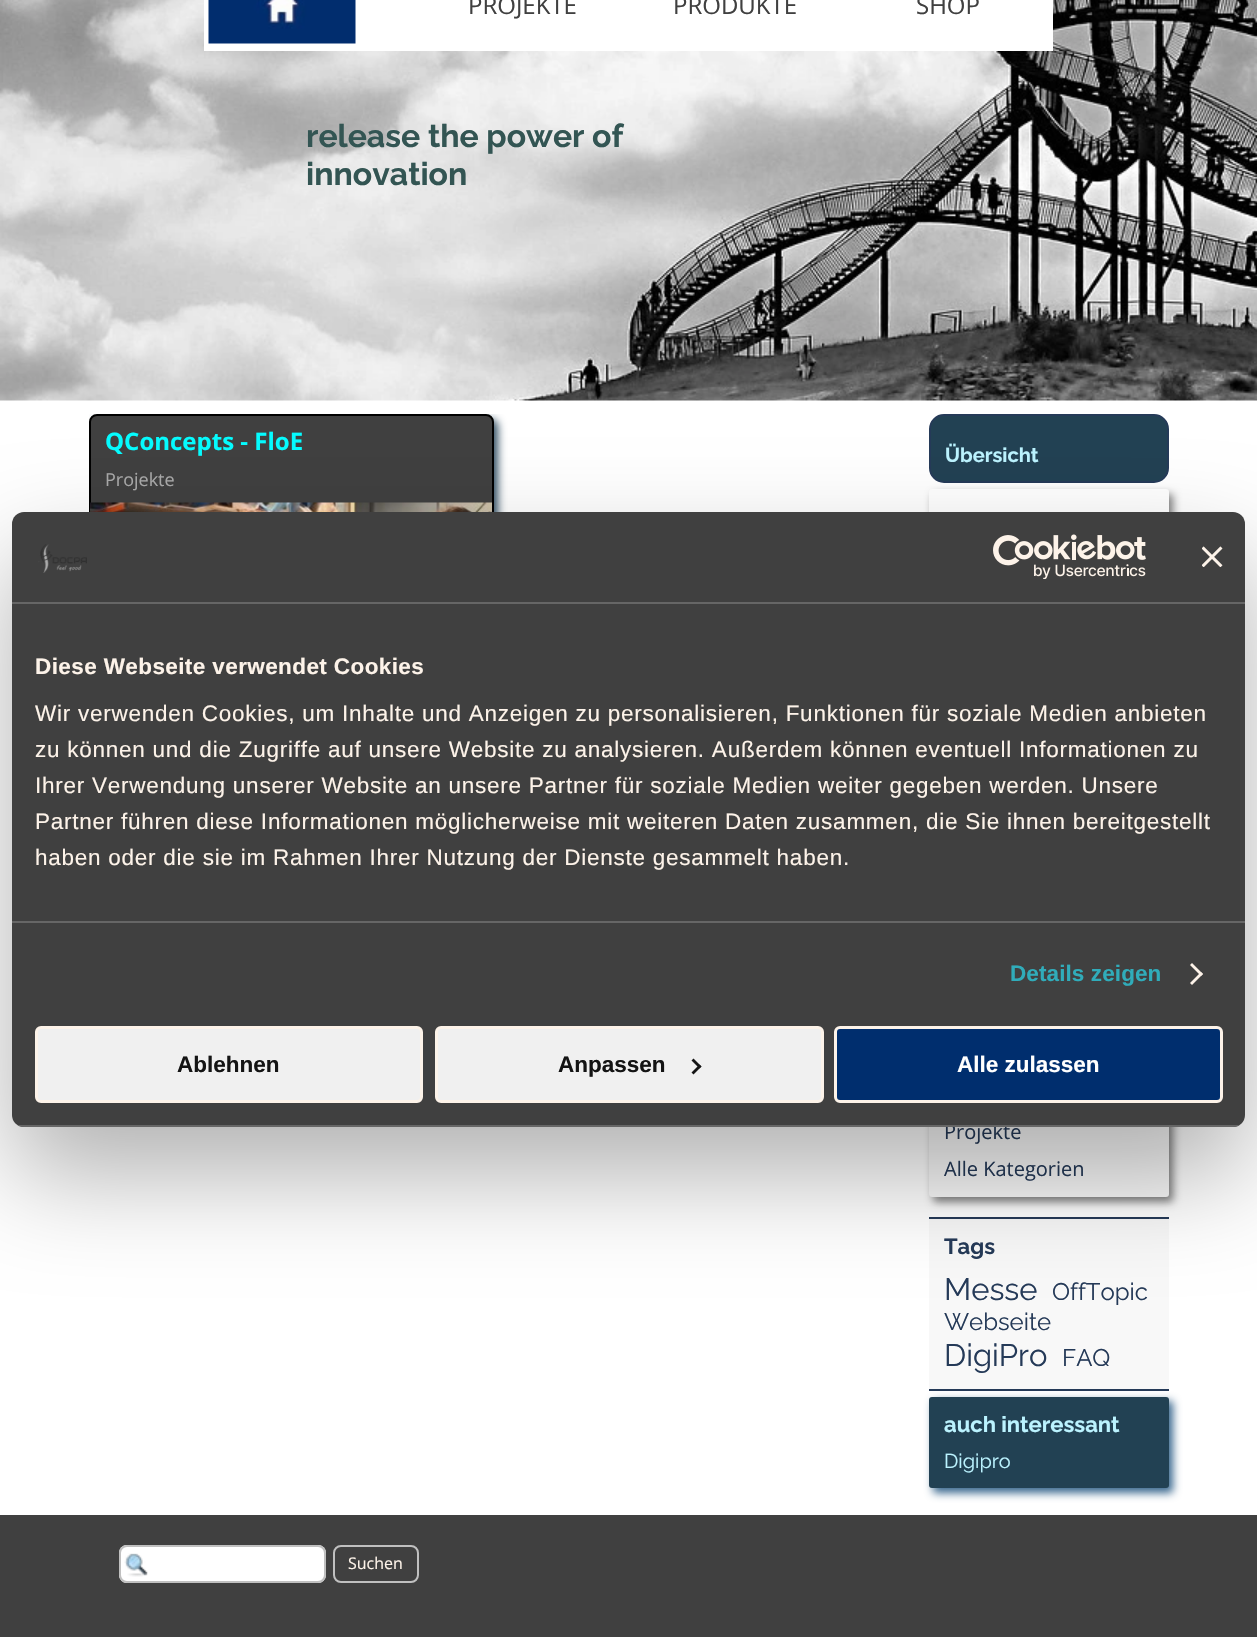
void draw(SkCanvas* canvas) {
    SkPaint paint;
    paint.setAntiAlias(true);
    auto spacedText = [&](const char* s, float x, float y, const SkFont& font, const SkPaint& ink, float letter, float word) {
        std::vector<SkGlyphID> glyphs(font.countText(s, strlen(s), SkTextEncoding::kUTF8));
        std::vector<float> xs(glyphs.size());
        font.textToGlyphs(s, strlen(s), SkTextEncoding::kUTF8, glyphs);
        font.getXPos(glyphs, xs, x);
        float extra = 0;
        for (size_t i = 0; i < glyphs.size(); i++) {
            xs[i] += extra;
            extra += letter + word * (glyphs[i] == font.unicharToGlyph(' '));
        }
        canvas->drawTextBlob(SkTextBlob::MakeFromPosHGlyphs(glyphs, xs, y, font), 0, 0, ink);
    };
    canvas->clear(0xFFFFFFFF);
    canvas->drawImageRect(SkImages::DeferredFromEncodedData(SkData::MakeFromFileName("img1.png")), SkRect::MakeXYWH(0, 0, 1257, 401), SkSamplingOptions());
    paint.setColor(0xFFFFFFFF);
    canvas->drawRect(SkRect::MakeXYWH(204, 0, 849, 51), paint);
    canvas->drawImageRect(SkImages::DeferredFromEncodedData(SkData::MakeFromFileName("img2.png")), SkRect::MakeXYWH(208, 0, 148, 44), SkSamplingOptions());
    SkFont font1(fontMgr->matchFamilyStyle("Open Sans", SkFontStyle::Normal()), 24);
    font1.setSubpixel(true);
    paint.setColor(0xFF404040);
    canvas->drawString("PROJEKTE", 468, 14, font1, paint);
    canvas->drawString("PRODUKTE", 673, 14, font1, paint);
    canvas->drawString("SHOP", 916, 14, font1, paint);
    SkFont font2(fontMgr->matchFamilyStyle("Raleway", SkFontStyle::Bold()), 32);
    font2.setSubpixel(true);
    paint.setColor(0xFF335553);
    canvas->drawString("release the power of", 306, 147, font2, paint);
    canvas->drawString("innovation", 306, 185, font2, paint);
    canvas->save();
    canvas->clipRect(SkRect::MakeXYWH(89, 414, 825, 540));
    paint.setColor(0xFF325064);
    paint.setMaskFilter(SkMaskFilter::MakeBlur(kNormal_SkBlurStyle, 4));
    canvas->drawRoundRect(SkRect::MakeXYWH(93, 419, 405, 540), 8, 8, paint);
    paint.setMaskFilter(nullptr);
    canvas->restore();
    paint.setColor(0xFF404040);
    canvas->drawRoundRect(SkRect::MakeXYWH(90, 415, 403, 538), 7, 7, paint);
    paint.setStyle(SkPaint::kStroke_Style);
    paint.setStrokeWidth(2);
    paint.setColor(0xFF000000);
    canvas->drawRoundRect(SkRect::MakeXYWH(90, 415, 403, 538), 7, 7, paint);
    SkFont font3(fontMgr->matchFamilyStyle("Open Sans", SkFontStyle::Bold()), 24);
    font3.setSubpixel(true);
    paint.setStyle(SkPaint::kFill_Style);
    paint.setColor(0xFF05FCFF);
    canvas->drawString("QConcepts - FloE", 105, 450, font3, paint);
    SkFont font4(fontMgr->matchFamilyStyle("Open Sans", SkFontStyle::Normal()), 18);
    font4.setSubpixel(true);
    paint.setColor(0xFFA9A9A9);
    canvas->drawString("Projekte", 105, 486, font4, paint);
    canvas->drawImageRect(SkImages::DeferredFromEncodedData(SkData::MakeFromFileName("img3.png")), SkRect::MakeXYWH(90, 502, 402, 10), SkSamplingOptions());
    paint.setColor(0xFF224153);
    canvas->drawRoundRect(SkRect::MakeXYWH(930, 415, 238, 67), 14, 14, paint);
    paint.setStyle(SkPaint::kStroke_Style);
    paint.setColor(0xFF253A58);
    canvas->drawRoundRect(SkRect::MakeXYWH(930, 415, 238, 67), 14, 14, paint);
    SkFont font5(fontMgr->matchFamilyStyle("Raleway", SkFontStyle::Bold()), 20);
    font5.setSubpixel(true);
    paint.setStyle(SkPaint::kFill_Style);
    paint.setColor(0xFFBBF3FF);
    canvas->drawString("Übersicht", 945, 462, font5, paint);
    paint.setColor(0xFF808080);
    paint.setMaskFilter(SkMaskFilter::MakeBlur(kNormal_SkBlurStyle, 4));
    canvas->drawRoundRect(SkRect::MakeXYWH(933, 494, 240, 249), 3, 3, paint);
    paint.setMaskFilter(nullptr);
    paint.setColor(0xFFFFFFFF);
    canvas->drawRoundRect(SkRect::MakeXYWH(929, 489, 240, 249), 3, 3, paint);
    paint.setColor(0xFF808080);
    paint.setMaskFilter(SkMaskFilter::MakeBlur(kNormal_SkBlurStyle, 4));
    canvas->drawRoundRect(SkRect::MakeXYWH(933, 992, 240, 210), 3, 3, paint);
    paint.setMaskFilter(nullptr);
    paint.setColor(0xFFF8F8F8);
    canvas->drawRoundRect(SkRect::MakeXYWH(929, 987, 240, 210), 3, 3, paint);
    SkFont font6(fontMgr->matchFamilyStyle("Open Sans", SkFontStyle::Normal()), 20);
    font6.setSubpixel(true);
    paint.setColor(0xFF253A58);
    canvas->drawString("Projekte", 944, 1139, font6, paint);
    canvas->drawString("Alle Kategorien", 944, 1176, font6, paint);
    paint.setColor(0xFFF8F8F8);
    canvas->drawRect(SkRect::MakeXYWH(929, 1219, 240, 170), paint);
    paint.setColor(0xFF253A58);
    canvas->drawRect(SkRect::MakeXYWH(929, 1217, 240, 2), paint);
    canvas->drawRect(SkRect::MakeXYWH(929, 1389, 240, 2), paint);
    SkFont font7(fontMgr->matchFamilyStyle("Raleway", SkFontStyle::Bold()), 22);
    font7.setSubpixel(true);
    canvas->drawString("Tags", 944, 1254, font7, paint);
    SkFont font8(fontMgr->matchFamilyStyle("Raleway", SkFontStyle::Normal()), 31);
    font8.setSubpixel(true);
    canvas->drawString("Messe", 944, 1300, font8, paint);
    SkFont font9(fontMgr->matchFamilyStyle("Raleway", SkFontStyle::Normal()), 24);
    font9.setSubpixel(true);
    canvas->drawString("OffTopic", 1052, 1300, font9, paint);
    canvas->drawString("Webseite", 944, 1330, font9, paint);
    canvas->drawString("DigiPro", 944, 1366, font8, paint);
    canvas->drawString("FAQ", 1062, 1366, font9, paint);
    paint.setColor(0xFF39678E);
    paint.setMaskFilter(SkMaskFilter::MakeBlur(kNormal_SkBlurStyle, 4));
    canvas->drawRoundRect(SkRect::MakeXYWH(933, 1401, 240, 92), 3, 3, paint);
    paint.setMaskFilter(nullptr);
    paint.setColor(0xFF224153);
    canvas->drawRoundRect(SkRect::MakeXYWH(929, 1397, 240, 91), 3, 3, paint);
    paint.setColor(0xFFBBF3FF);
    canvas->drawString("auch interessant", 944, 1432, font7, paint);
    SkFont font10(fontMgr->matchFamilyStyle("Raleway", SkFontStyle::Normal()), 20);
    font10.setSubpixel(true);
    canvas->drawString("Digipro", 944, 1468, font10, paint);
    paint.setColor(0xFF404040);
    canvas->drawRect(SkRect::MakeXYWH(0, 1515, 1257, 122), paint);
    paint.setColor(0xFFFFFFFF);
    canvas->drawRoundRect(SkRect::MakeXYWH(119, 1545, 207, 38), 8, 8, paint);
    canvas->drawImageRect(SkImages::DeferredFromEncodedData(SkData::MakeFromFileName("img4.png")), SkRect::MakeXYWH(124, 1553, 24, 24), SkSamplingOptions());
    paint.setStyle(SkPaint::kStroke_Style);
    paint.setColor(0xFFC0C0C0);
    canvas->drawRoundRect(SkRect::MakeXYWH(120, 1546, 205, 36), 7, 7, paint);
    canvas->drawRoundRect(SkRect::MakeXYWH(334, 1546, 84, 36), 7, 7, paint);
    SkFont font11(fontMgr->matchFamilyStyle("Open Sans", SkFontStyle::Normal()), 16);
    font11.setSubpixel(true);
    paint.setStyle(SkPaint::kFill_Style);
    paint.setColor(0xFFFDF3E9);
    canvas->drawString("Suchen", 348, 1569, font11, paint);
    paint.setColor(0x4D000000);
    paint.setMaskFilter(SkMaskFilter::MakeBlur(kNormal_SkBlurStyle, 51));
    canvas->drawRoundRect(SkRect::MakeXYWH(12, 560, 1233, 615), 12, 12, paint);
    paint.setMaskFilter(nullptr);
    paint.setColor(0xFF404040);
    canvas->drawRoundRect(SkRect::MakeXYWH(12, 512, 1233, 615), 12, 12, paint);
    paint.setColor(0xFF666666);
    canvas->drawRect(SkRect::MakeXYWH(12, 602, 1233, 2), paint);
    canvas->drawImageRect(SkImages::DeferredFromEncodedData(SkData::MakeFromFileName("img5.png")), SkRect::MakeXYWH(38, 544, 49, 29), SkSamplingOptions());
    canvas->drawImageRect(SkImages::DeferredFromEncodedData(SkData::MakeFromFileName("img6.png")), SkRect::MakeXYWH(993, 534, 153, 45), SkSamplingOptions());
    canvas->drawImageRect(SkImages::DeferredFromEncodedData(SkData::MakeFromFileName("img7.png")), SkRect::MakeXYWH(1202, 546, 21, 21), SkSamplingOptions());
    canvas->drawRect(SkRect::MakeXYWH(12, 921, 1233, 2), paint);
    SkFont font12(fontMgr->matchFamilyStyle("Liberation Sans", SkFontStyle::Bold()), 22.5f);
    font12.setSubpixel(true);
    paint.setColor(0xFFFDF3E9);
    spacedText("Diese Webseite verwendet Cookies", 35, 674, font12, paint, 0.4f, 0);
    SkFont font13(fontMgr->matchFamilyStyle("Liberation Sans", SkFontStyle::Normal()), 22.5f);
    font13.setSubpixel(true);
    spacedText("Wir verwenden Cookies, um Inhalte und Anzeigen zu personalisieren, Funktionen für soziale Medien anbieten", 35, 721, font13, paint, 0.75f, 0);
    spacedText("zu können und die Zugriffe auf unsere Website zu analysieren. Außerdem können eventuell Informationen zu", 35, 757, font13, paint, 0.75f, 0);
    spacedText("Ihrer Verwendung unserer Website an unsere Partner für soziale Medien weiter gegeben werden. Unsere", 35, 793, font13, paint, 0.75f, 0);
    spacedText("Partner führen diese Informationen möglicherweise mit weiteren Daten zusammen, die Sie ihnen bereitgestellt", 35, 829, font13, paint, 0.75f, 0);
    spacedText("haben oder die sie im Rahmen Ihrer Nutzung der Dienste gesammelt haben.", 35, 865, font13, paint, 0.75f, 0);
    paint.setColor(0xFF30ACBA);
    spacedText("Details zeigen", 1010, 981, font12, paint, 0.1f, 0);
    paint.setColor(0xFFFDF3E9);
    canvas->drawPath(SkPathBuilder().moveTo(1192, 963).lineTo(1203, 974).lineTo(1201, 976).lineTo(1190, 965).close().detach(), paint);
    canvas->drawPath(SkPathBuilder().moveTo(1201, 972).lineTo(1203, 974).lineTo(1192, 985).lineTo(1190, 983).close().detach(), paint);
    canvas->save();
    canvas->clipPath(SkPathBuilder().moveTo(24, 512).lineTo(1233, 512).cubicTo(1239.5f, 512, 1245, 517.5f, 1245, 524).lineTo(1245, 1115).cubicTo(1245, 1121.5f, 1239.5f, 1127, 1233, 1127).lineTo(24, 1127).cubicTo(17.5f, 1127, 12, 1121.5f, 12, 1115).lineTo(12, 524).cubicTo(12, 517.5f, 17.5f, 512, 24, 512).close().detach(), true);
    paint.setColor(0xFF666666);
    canvas->drawRect(SkRect::MakeXYWH(12, 1125, 1233, 2), paint);
    canvas->restore();
    paint.setColor(0xFFF0F0F0);
    canvas->drawRoundRect(SkRect::MakeXYWH(36.5f, 1027.5f, 385, 74), 4.5f, 4.5f, paint);
    paint.setStyle(SkPaint::kStroke_Style);
    paint.setStrokeWidth(3);
    paint.setColor(0xFFFDF3E9);
    canvas->drawRoundRect(SkRect::MakeXYWH(36.5f, 1027.5f, 385, 74), 4.5f, 4.5f, paint);
    paint.setStyle(SkPaint::kFill_Style);
    paint.setColor(0xFF141414);
    canvas->drawString("Ablehnen", 177, 1072, font12, paint);
    paint.setColor(0xFFF0F0F0);
    canvas->drawRoundRect(SkRect::MakeXYWH(436.5f, 1027.5f, 386, 74), 4.5f, 4.5f, paint);
    paint.setStyle(SkPaint::kStroke_Style);
    paint.setColor(0xFFFDF3E9);
    canvas->drawRoundRect(SkRect::MakeXYWH(436.5f, 1027.5f, 386, 74), 4.5f, 4.5f, paint);
    paint.setStyle(SkPaint::kFill_Style);
    paint.setColor(0xFF141414);
    canvas->drawString("Anpassen", 558, 1072, font12, paint);
    canvas->drawPath(SkPathBuilder().moveTo(693.5f, 1058.5f).lineTo(701.5f, 1066.5f).lineTo(699.5f, 1068.5f).lineTo(691.5f, 1060.5f).close().detach(), paint);
    canvas->drawPath(SkPathBuilder().moveTo(699.5f, 1064.5f).lineTo(701.5f, 1066.5f).lineTo(693.5f, 1074.5f).lineTo(691.5f, 1072.5f).close().detach(), paint);
    paint.setColor(0xFF002E6E);
    canvas->drawRoundRect(SkRect::MakeXYWH(835.5f, 1027.5f, 386, 74), 4.5f, 4.5f, paint);
    paint.setStyle(SkPaint::kStroke_Style);
    paint.setColor(0xFFFDF3E9);
    canvas->drawRoundRect(SkRect::MakeXYWH(835.5f, 1027.5f, 386, 74), 4.5f, 4.5f, paint);
    paint.setStyle(SkPaint::kFill_Style);
    paint.setColor(0xFFFFFFFF);
    canvas->drawString("Alle zulassen", 957, 1072, font12, paint);
}
